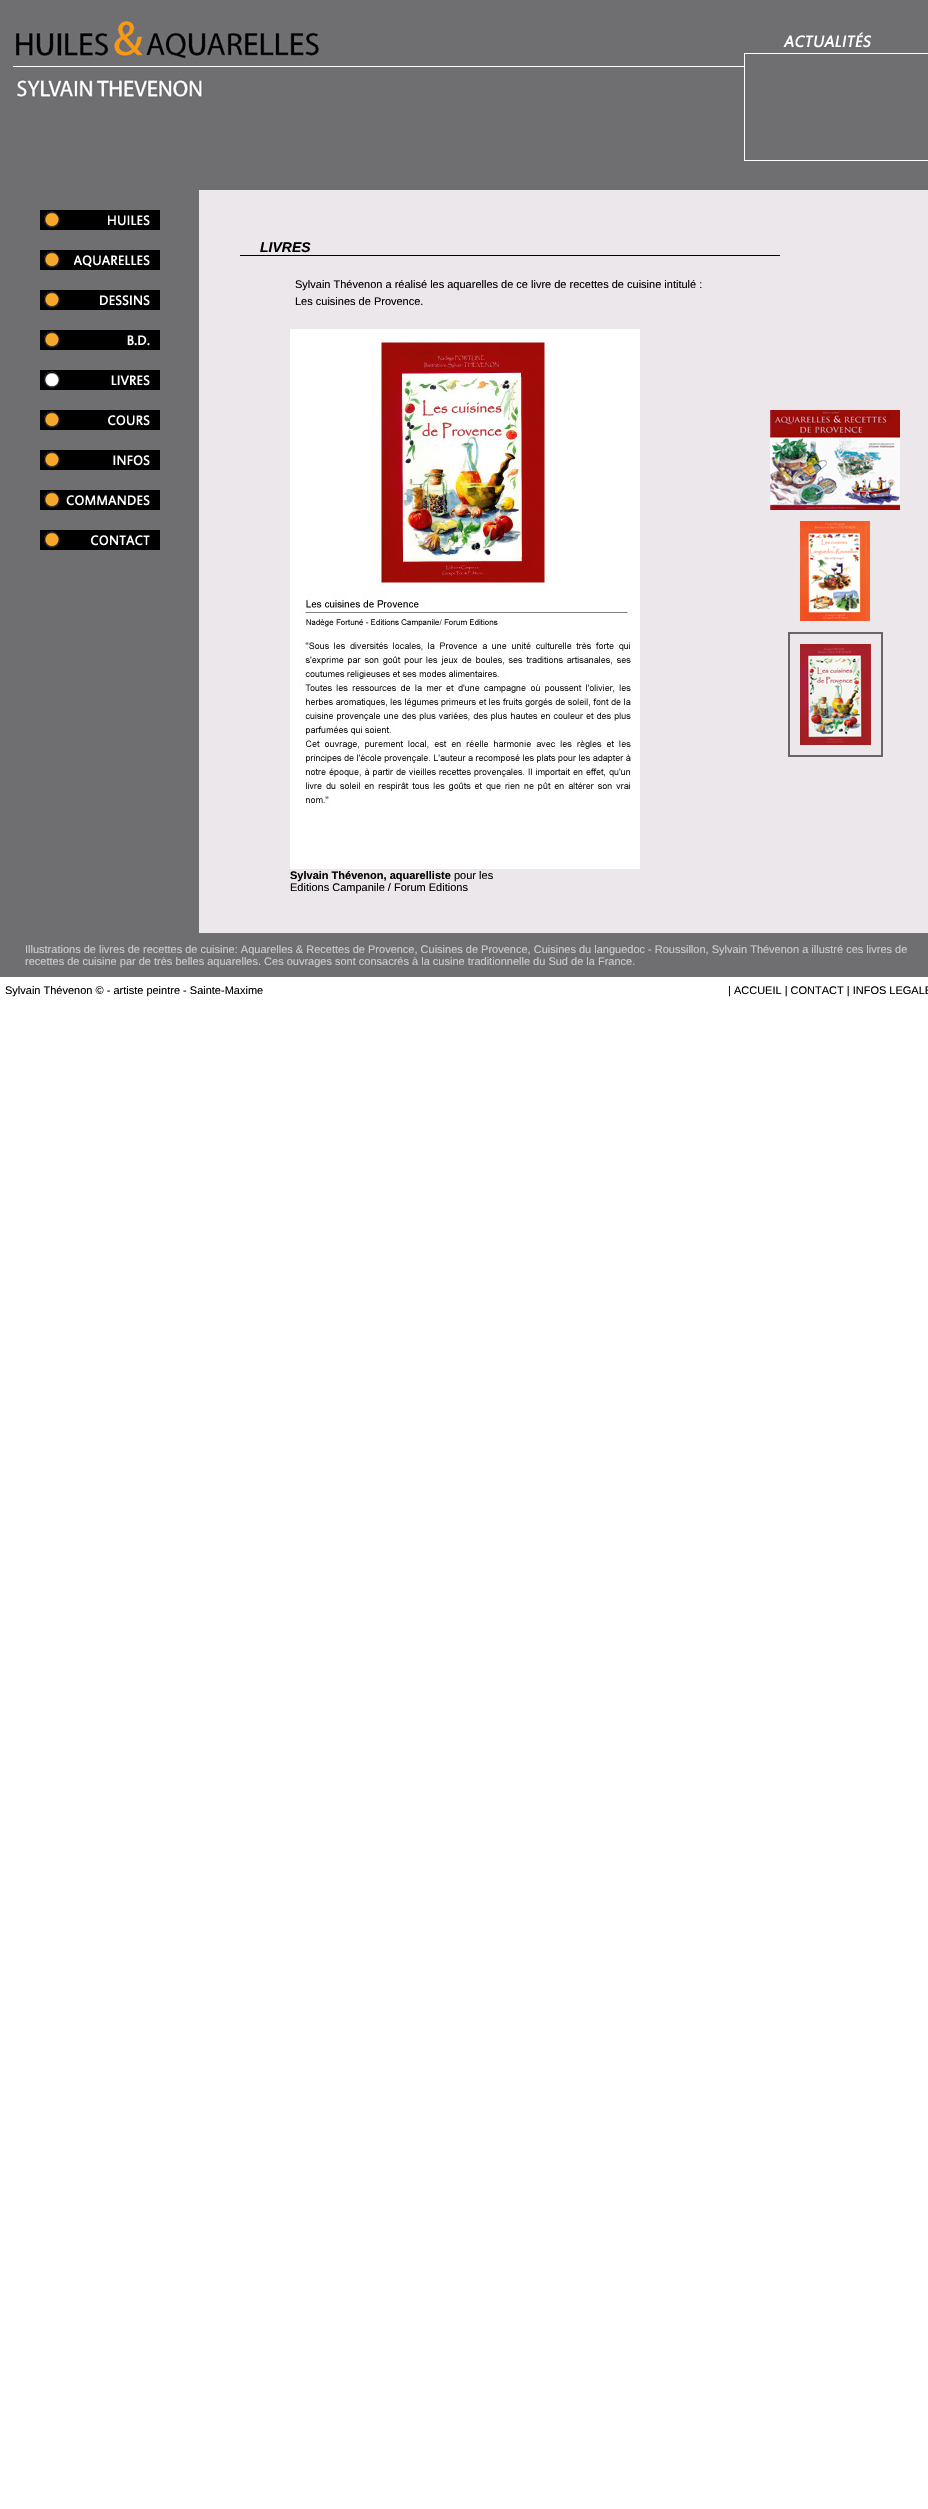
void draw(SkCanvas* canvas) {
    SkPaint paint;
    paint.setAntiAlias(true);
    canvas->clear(0xFFFFFFFF);
    paint.setColor(0xFFEBE7EA);
    canvas->drawRect(SkRect::MakeXYWH(199, 190, 729, 743), paint);
    canvas->drawImageRect(SkImages::DeferredFromEncodedData(SkData::MakeFromFileName("img1.png")), SkRect::MakeXYWH(0, 0, 928, 190), SkSamplingOptions());
    canvas->drawImageRect(SkImages::DeferredFromEncodedData(SkData::MakeFromFileName("img2.png")), SkRect::MakeXYWH(16, 20, 303, 78), SkSamplingOptions());
    paint.setColor(0xFF6F6F72);
    canvas->drawRect(SkRect::MakeXYWH(0, 190, 199, 743), paint);
    canvas->drawImageRect(SkImages::DeferredFromEncodedData(SkData::MakeFromFileName("img3.png")), SkRect::MakeXYWH(40, 210, 120, 20), SkSamplingOptions());
    canvas->drawImageRect(SkImages::DeferredFromEncodedData(SkData::MakeFromFileName("img4.png")), SkRect::MakeXYWH(40, 250, 120, 20), SkSamplingOptions());
    canvas->drawImageRect(SkImages::DeferredFromEncodedData(SkData::MakeFromFileName("img5.png")), SkRect::MakeXYWH(40, 290, 120, 20), SkSamplingOptions());
    canvas->drawImageRect(SkImages::DeferredFromEncodedData(SkData::MakeFromFileName("img6.png")), SkRect::MakeXYWH(40, 330, 120, 20), SkSamplingOptions());
    canvas->drawImageRect(SkImages::DeferredFromEncodedData(SkData::MakeFromFileName("img7.png")), SkRect::MakeXYWH(40, 370, 120, 20), SkSamplingOptions());
    canvas->drawImageRect(SkImages::DeferredFromEncodedData(SkData::MakeFromFileName("img8.png")), SkRect::MakeXYWH(40, 410, 120, 20), SkSamplingOptions());
    canvas->drawImageRect(SkImages::DeferredFromEncodedData(SkData::MakeFromFileName("img9.png")), SkRect::MakeXYWH(40, 450, 120, 20), SkSamplingOptions());
    canvas->drawImageRect(SkImages::DeferredFromEncodedData(SkData::MakeFromFileName("img10.png")), SkRect::MakeXYWH(40, 490, 120, 20), SkSamplingOptions());
    canvas->drawImageRect(SkImages::DeferredFromEncodedData(SkData::MakeFromFileName("img11.png")), SkRect::MakeXYWH(40, 530, 120, 20), SkSamplingOptions());
    paint.setColor(0xFF000000);
    canvas->drawRect(SkRect::MakeXYWH(240, 255, 540, 1), paint);
    SkFont font1(fontMgr->matchFamilyStyle("Liberation Sans", SkFontStyle::BoldItalic()), 14);
    font1.setSubpixel(true);
    canvas->drawString("LIVRES", 260, 252, font1, paint);
    SkFont font2(fontMgr->matchFamilyStyle("Liberation Sans", SkFontStyle::Normal()), 11);
    font2.setSubpixel(true);
    canvas->drawString("Sylvain Thévenon a réalisé les aquarelles de ce livre de recettes de cuisine intitulé :", 295, 288, font2, paint);
    canvas->drawString("Les cuisines de Provence.", 295, 305, font2, paint);
    canvas->drawImageRect(SkImages::DeferredFromEncodedData(SkData::MakeFromFileName("img12.png")), SkRect::MakeXYWH(770, 410, 130, 100), SkSamplingOptions());
    canvas->drawImageRect(SkImages::DeferredFromEncodedData(SkData::MakeFromFileName("img13.png")), SkRect::MakeXYWH(800, 521, 70, 100), SkSamplingOptions());
    paint.setStyle(SkPaint::kStroke_Style);
    paint.setStrokeWidth(2);
    paint.setColor(0xFF666666);
    canvas->drawRect(SkRect::MakeXYWH(789, 633, 93, 123), paint);
    canvas->drawImageRect(SkImages::DeferredFromEncodedData(SkData::MakeFromFileName("img14.png")), SkRect::MakeXYWH(800, 644, 71, 101), SkSamplingOptions());
    canvas->drawImageRect(SkImages::DeferredFromEncodedData(SkData::MakeFromFileName("img15.png")), SkRect::MakeXYWH(290, 329, 350, 540), SkSamplingOptions());
    SkFont font3(fontMgr->matchFamilyStyle("Liberation Sans", SkFontStyle::Bold()), 11);
    font3.setSubpixel(true);
    paint.setStyle(SkPaint::kFill_Style);
    paint.setColor(0xFF000000);
    canvas->drawString("Sylvain Thévenon, aquarelliste", 290, 879, font3, paint);
    canvas->drawString("pour les", 454, 879, font2, paint);
    canvas->drawString("Editions Campanile / Forum Editions", 290, 891, font2, paint);
    paint.setColor(0xFF6F6F72);
    canvas->drawRect(SkRect::MakeXYWH(0, 933, 928, 44), paint);
    paint.setColor(0xFFCCCCCC);
    canvas->drawString("Illustrations de livres de recettes de cuisine: Aquarelles & Recettes de Provence, Cuisines de Provence, Cuisines du languedoc - Roussillon, Sylvain Thévenon a illustré ces livres de", 25, 953, font2, paint);
    canvas->drawString("recettes de cuisine par de très belles aquarelles. Ces ouvrages sont consacrés à la cusine traditionnelle du Sud de la France.", 25, 965, font2, paint);
    paint.setColor(0xFF000000);
    canvas->drawString("Sylvain Thévenon © - artiste peintre - Sainte-Maxime", 5, 994, font2, paint);
    canvas->drawString("| ACCUEIL | CONTACT | INFOS LEGALE", 728, 994, font2, paint);
}
